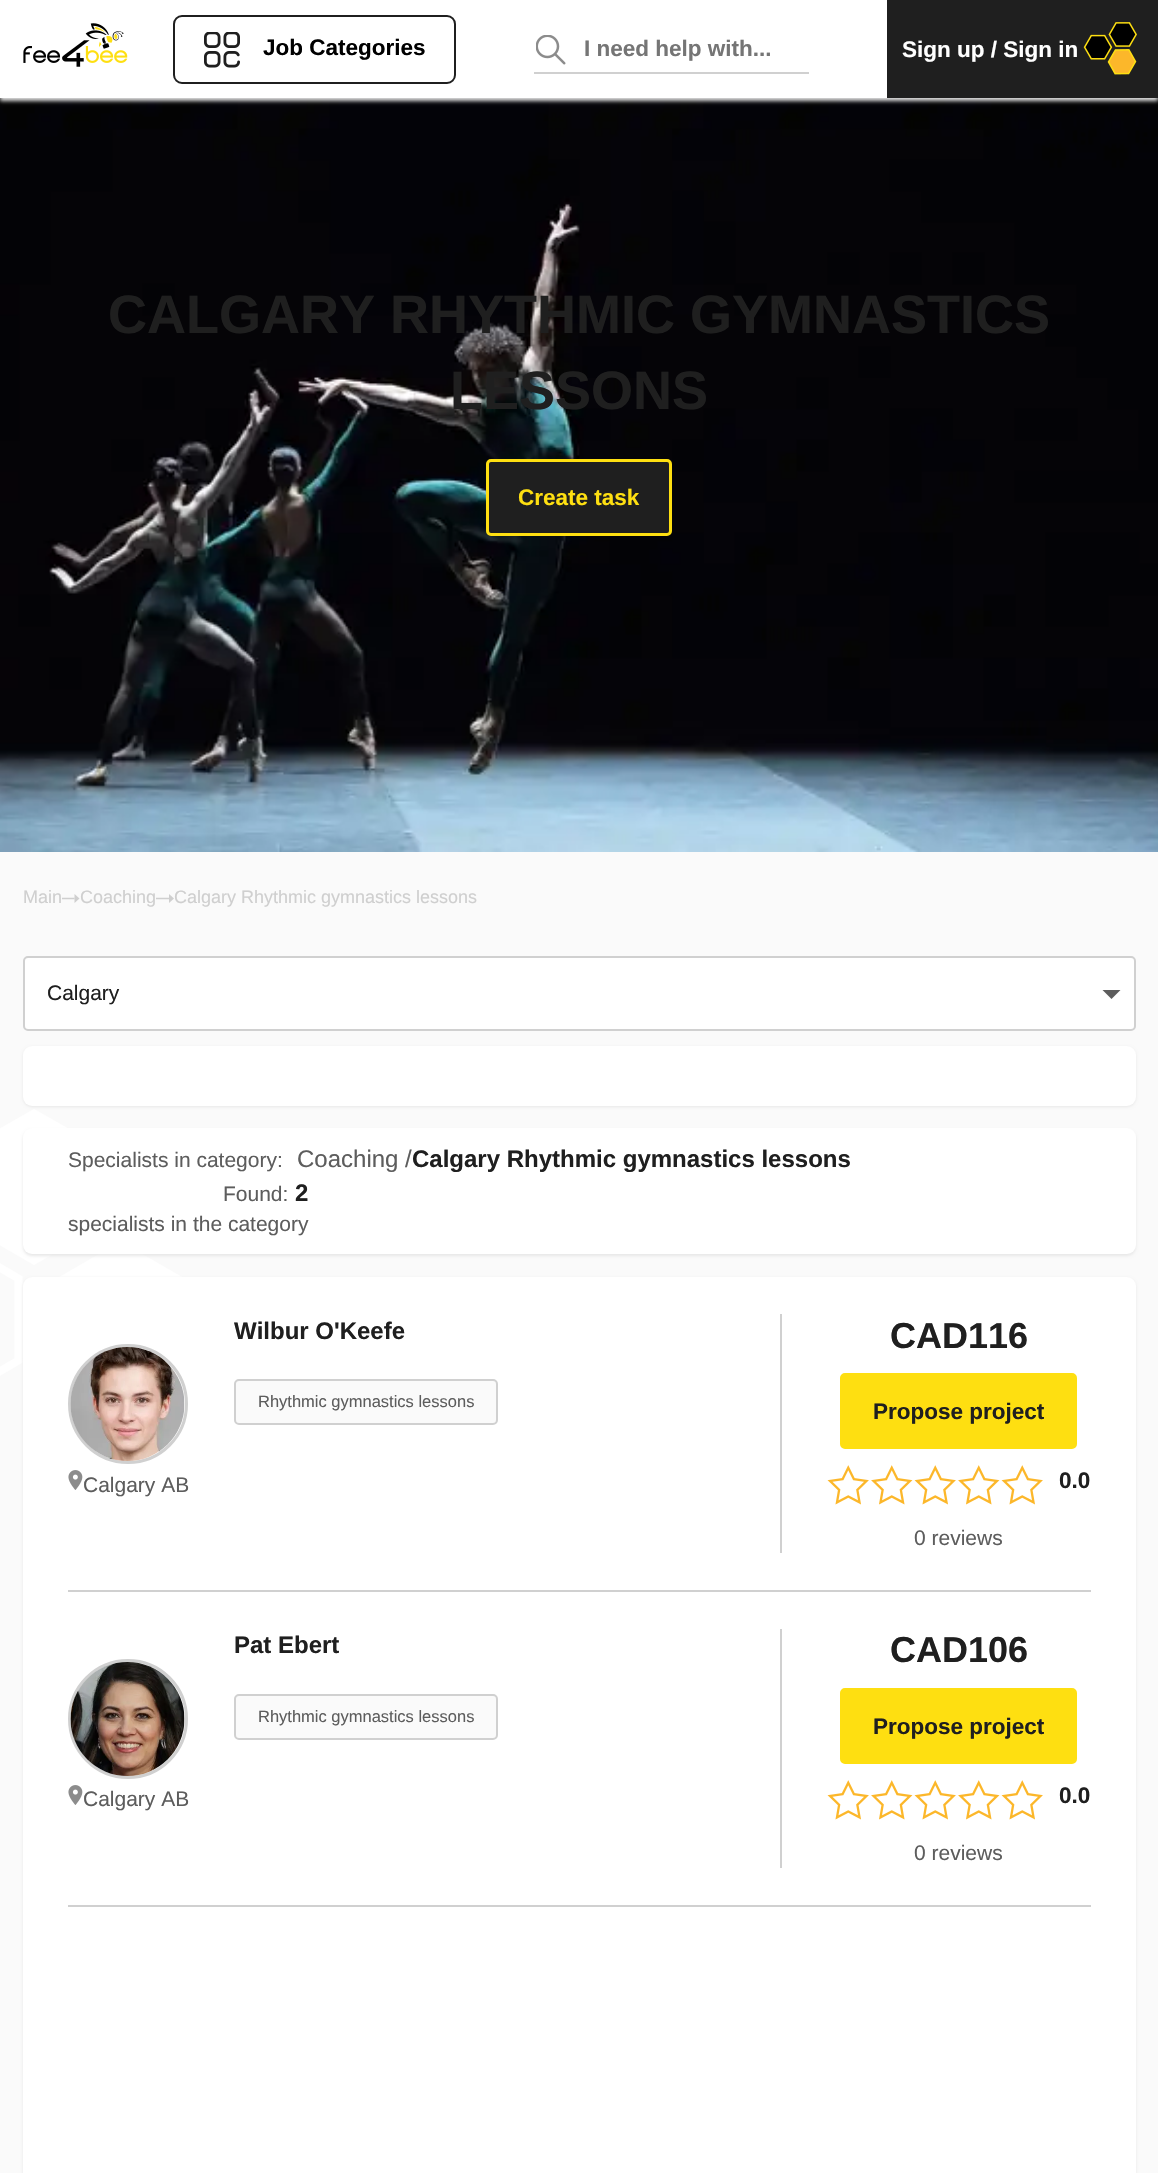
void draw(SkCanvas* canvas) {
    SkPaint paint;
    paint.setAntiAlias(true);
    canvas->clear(0xFFFFFFFF);
    canvas->drawImageRect(SkImages::DeferredFromEncodedData(SkData::MakeFromFileName("img5.png")), SkRect::MakeXYWH(0, 98, 1158, 754), SkSamplingOptions());
    paint.setColor(0xFFE1E1E1);
    paint.setMaskFilter(SkMaskFilter::MakeBlur(kNormal_SkBlurStyle, 2));
    canvas->drawRect(SkRect::MakeXYWH(0, 3, 1158, 98), paint);
    paint.setMaskFilter(nullptr);
    paint.setColor(0xFFFFFFFF);
    canvas->drawRect(SkRect::MakeXYWH(0, 0, 887, 98), paint);
    canvas->drawImageRect(SkImages::DeferredFromEncodedData(SkData::MakeFromFileName("img1.png")), SkRect::MakeXYWH(23, 23, 105, 44), SkSamplingOptions());
    paint.setStyle(SkPaint::kStroke_Style);
    paint.setStrokeWidth(2);
    paint.setColor(0xFF1F1F1F);
    canvas->drawRoundRect(SkRect::MakeXYWH(174, 16, 281, 67), 8, 8, paint);
    canvas->drawImageRect(SkImages::DeferredFromEncodedData(SkData::MakeFromFileName("img2.png")), SkRect::MakeXYWH(204, 32, 36, 36), SkSamplingOptions());
    SkFont font1(fontMgr->matchFamilyStyle("Liberation Sans", SkFontStyle::Bold()), 22.5f);
    font1.setSubpixel(true);
    paint.setStyle(SkPaint::kFill_Style);
    paint.setColor(0xFF000000);
    canvas->drawString("Job Categories", 263, 55, font1, paint);
    canvas->drawImageRect(SkImages::DeferredFromEncodedData(SkData::MakeFromFileName("img3.png")), SkRect::MakeXYWH(536, 35, 30, 30), SkSamplingOptions());
    paint.setColor(0xFFD0D0D0);
    canvas->drawRect(SkRect::MakeXYWH(534, 72, 275, 2), paint);
    paint.setColor(0xFF757575);
    canvas->drawString("I need help with...", 584, 56, font1, paint);
    paint.setColor(0xFF1F1F1F);
    canvas->drawRect(SkRect::MakeXYWH(887, 0, 271, 98), paint);
    paint.setColor(0xFFFFFFFF);
    canvas->drawString("Sign up / Sign in", 902, 57, font1, paint);
    canvas->drawImageRect(SkImages::DeferredFromEncodedData(SkData::MakeFromFileName("img4.png")), SkRect::MakeXYWH(1083, 22, 54, 53), SkSamplingOptions());
    SkFont font2(fontMgr->matchFamilyStyle("Liberation Sans", SkFontStyle::Bold()), 54);
    font2.setSubpixel(true);
    paint.setColor(0xFF1F1F1F);
    canvas->drawString("CALGARY RHYTHMIC GYMNASTICS", 108, 333, font2, paint);
    canvas->drawString("LESSONS", 450, 409, font2, paint);
    canvas->drawRoundRect(SkRect::MakeXYWH(487.5f, 460.5f, 183, 74), 3.5f, 3.5f, paint);
    paint.setStyle(SkPaint::kStroke_Style);
    paint.setStrokeWidth(3);
    paint.setColor(0xFFFEDF11);
    canvas->drawRoundRect(SkRect::MakeXYWH(487.5f, 460.5f, 183, 74), 3.5f, 3.5f, paint);
    paint.setStyle(SkPaint::kFill_Style);
    canvas->drawString("Create task", 518, 505, font1, paint);
    paint.setColor(0xFFFAFAFA);
    canvas->drawRect(SkRect::MakeXYWH(0, 852, 1158, 1321), paint);
    SkFont font3(fontMgr->matchFamilyStyle("Liberation Sans", SkFontStyle::Normal()), 18);
    font3.setSubpixel(true);
    paint.setColor(0xFFCFCFCF);
    canvas->drawString("Main", 23, 903, font3, paint);
    canvas->drawPath(SkPathBuilder().moveTo(79.5f, 898.5f).lineTo(74.5f, 894).lineTo(74.5f, 903).close().detach(), paint);
    canvas->save();
    canvas->clipRect(SkRect::MakeXYWH(62, 894, 18, 9));
    paint.setStyle(SkPaint::kStroke_Style);
    paint.setStrokeWidth(1.5f);
    canvas->drawPath(SkPathBuilder().moveTo(74.5f, 898.5f).lineTo(61.5f, 898.5f).detach(), paint);
    canvas->restore();
    paint.setStyle(SkPaint::kFill_Style);
    canvas->drawString("Coaching", 80, 903, font3, paint);
    paint.setStyle(SkPaint::kStroke_Style);
    canvas->drawPath(SkPathBuilder().moveTo(169, 898.5f).lineTo(156, 898.5f).detach(), paint);
    paint.setStyle(SkPaint::kFill_Style);
    canvas->drawPath(SkPathBuilder().moveTo(174, 898.5f).lineTo(169, 894).lineTo(169, 903).close().detach(), paint);
    canvas->drawString("Calgary Rhythmic gymnastics lessons", 174, 903, font3, paint);
    paint.setColor(0xFFFFFFFF);
    canvas->drawRoundRect(SkRect::MakeXYWH(24, 957, 1111, 73), 4, 4, paint);
    paint.setStyle(SkPaint::kStroke_Style);
    paint.setStrokeWidth(2);
    paint.setColor(0xFFD0D0D0);
    canvas->drawRoundRect(SkRect::MakeXYWH(24, 957, 1111, 73), 4, 4, paint);
    SkFont font4(fontMgr->matchFamilyStyle("Liberation Sans", SkFontStyle::Normal()), 21);
    font4.setSubpixel(true);
    paint.setStyle(SkPaint::kFill_Style);
    paint.setColor(0xFF1F1F1F);
    canvas->drawString("Calgary", 47, 1000, font4, paint);
    paint.setColor(0xFF5D5D5D);
    canvas->drawPath(SkPathBuilder().moveTo(1102.5f, 990).lineTo(1120.5f, 990).lineTo(1111.5f, 999).close().detach(), paint);
    paint.setColor(0xFFFFFFFF);
    canvas->drawPath(SkPathBuilder().moveTo(49, 1278).lineTo(121, 1237).lineTo(192, 1278).lineTo(192, 1361).lineTo(121, 1402).lineTo(49, 1361).close().detach(), paint);
    paint.setStyle(SkPaint::kStroke_Style);
    paint.setStrokeWidth(7.5f);
    paint.setColor(0xFFFAFAFA);
    canvas->drawPath(SkPathBuilder().moveTo(49, 1278.5f).lineTo(120.5f, 1237).lineTo(192.5f, 1278.5f).lineTo(192.5f, 1361).lineTo(120.5f, 1402).lineTo(49, 1361).close().detach(), paint);
    paint.setStyle(SkPaint::kFill_Style);
    paint.setColor(0xFFFFFFFF);
    canvas->drawPath(SkPathBuilder().moveTo(-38, 1146).lineTo(34, 1104).lineTo(106, 1146).lineTo(106, 1228).lineTo(34, 1269).lineTo(-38, 1228).close().detach(), paint);
    paint.setStyle(SkPaint::kStroke_Style);
    paint.setColor(0xFFFAFAFA);
    canvas->drawPath(SkPathBuilder().moveTo(-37.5f, 1145.5f).lineTo(34, 1104.5f).lineTo(106, 1145.5f).lineTo(106, 1228).lineTo(34, 1269.5f).lineTo(-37.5f, 1228).close().detach(), paint);
    paint.setStyle(SkPaint::kFill_Style);
    paint.setColor(0xFFE8E8E8);
    paint.setMaskFilter(SkMaskFilter::MakeBlur(kNormal_SkBlurStyle, 1.5f));
    canvas->drawRoundRect(SkRect::MakeXYWH(23, 1047, 1113, 60), 9, 9, paint);
    paint.setMaskFilter(nullptr);
    paint.setColor(0xFFFFFFFF);
    canvas->drawRoundRect(SkRect::MakeXYWH(23, 1046, 1113, 60), 9, 9, paint);
    paint.setColor(0xFFE8E8E8);
    paint.setMaskFilter(SkMaskFilter::MakeBlur(kNormal_SkBlurStyle, 1.5f));
    canvas->drawRoundRect(SkRect::MakeXYWH(23, 1130, 1113, 126), 9, 9, paint);
    paint.setMaskFilter(nullptr);
    paint.setColor(0xFFFFFFFF);
    canvas->drawRoundRect(SkRect::MakeXYWH(23, 1128, 1113, 126), 9, 9, paint);
    paint.setColor(0xFF5D5D5D);
    canvas->drawString("Specialists in category:", 68, 1167, font4, paint);
    SkFont font5(fontMgr->matchFamilyStyle("Liberation Sans", SkFontStyle::Normal()), 24);
    font5.setSubpixel(true);
    canvas->drawString("Coaching /", 297, 1167, font5, paint);
    SkFont font6(fontMgr->matchFamilyStyle("Liberation Sans", SkFontStyle::Bold()), 24);
    font6.setSubpixel(true);
    paint.setColor(0xFF1F1F1F);
    canvas->drawString("Calgary Rhythmic gymnastics lessons", 412, 1167, font6, paint);
    paint.setColor(0xFF5D5D5D);
    canvas->drawString("Found:", 223, 1201, font4, paint);
    paint.setColor(0xFF1F1F1F);
    canvas->drawString("2", 295, 1201, font6, paint);
    paint.setColor(0xFF5D5D5D);
    canvas->drawString("specialists in the category", 68, 1231, font4, paint);
    paint.setStyle(SkPaint::kStroke_Style);
    paint.setStrokeWidth(8.2f);
    paint.setColor(0xFFFFFFFF);
    canvas->drawPath(SkPathBuilder().moveTo(-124, 1278.5f).lineTo(-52.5f, 1237.5f).lineTo(18.5f, 1278.5f).lineTo(18.5f, 1360.5f).lineTo(-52.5f, 1401.5f).lineTo(-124, 1360.5f).close().detach(), paint);
    paint.setStyle(SkPaint::kFill_Style);
    paint.setColor(0xFFE8E8E8);
    paint.setMaskFilter(SkMaskFilter::MakeBlur(kNormal_SkBlurStyle, 1.5f));
    canvas->drawRoundRect(SkRect::MakeXYWH(23, 1278, 1113, 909), 9, 9, paint);
    paint.setMaskFilter(nullptr);
    paint.setColor(0xFFFFFFFF);
    canvas->drawRoundRect(SkRect::MakeXYWH(23, 1277, 1113, 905), 9, 9, paint);
    paint.setColor(0xFFD0D0D0);
    canvas->drawRect(SkRect::MakeXYWH(68, 1590, 1023, 2), paint);
    paint.setStyle(SkPaint::kStroke_Style);
    paint.setStrokeWidth(3);
    canvas->drawCircle(128, 1404, 58.5f, paint);
    canvas->drawImageRect(SkImages::DeferredFromEncodedData(SkData::MakeFromFileName("img6.png")), SkRect::MakeXYWH(70, 1347, 115, 114), SkSamplingOptions());
    canvas->drawImageRect(SkImages::DeferredFromEncodedData(SkData::MakeFromFileName("img7.png")), SkRect::MakeXYWH(68, 1470, 15, 20), SkSamplingOptions());
    paint.setStyle(SkPaint::kFill_Style);
    paint.setColor(0xFF5D5D5D);
    canvas->drawString("Calgary AB", 83, 1492, font4, paint);
    paint.setColor(0xFF1F1F1F);
    canvas->drawString("Wilbur O'Keefe", 234, 1339, font6, paint);
    paint.setColor(0xFFFAFAFA);
    canvas->drawRoundRect(SkRect::MakeXYWH(235, 1380, 262, 44), 4, 4, paint);
    paint.setStyle(SkPaint::kStroke_Style);
    paint.setStrokeWidth(2);
    paint.setColor(0xFFD0D0D0);
    canvas->drawRoundRect(SkRect::MakeXYWH(235, 1380, 262, 44), 4, 4, paint);
    SkFont font7(fontMgr->matchFamilyStyle("Liberation Sans", SkFontStyle::Normal()), 16.5f);
    font7.setSubpixel(true);
    paint.setStyle(SkPaint::kFill_Style);
    paint.setColor(0xFF5D5D5D);
    canvas->drawString("Rhythmic gymnastics lessons", 258, 1407, font7, paint);
    paint.setColor(0xFFD0D0D0);
    canvas->drawRect(SkRect::MakeXYWH(780, 1314, 2, 239), paint);
    SkFont font8(fontMgr->matchFamilyStyle("Liberation Sans", SkFontStyle::Bold()), 36);
    font8.setSubpixel(true);
    paint.setColor(0xFF1F1F1F);
    canvas->drawString("CAD116", 890, 1348, font8, paint);
    paint.setColor(0xFFFEDF11);
    canvas->drawRoundRect(SkRect::MakeXYWH(841.5f, 1374.5f, 234, 73), 3.5f, 3.5f, paint);
    paint.setStyle(SkPaint::kStroke_Style);
    paint.setStrokeWidth(3);
    canvas->drawRoundRect(SkRect::MakeXYWH(841.5f, 1374.5f, 234, 73), 3.5f, 3.5f, paint);
    paint.setStyle(SkPaint::kFill_Style);
    paint.setColor(0xFF1F1F1F);
    canvas->drawString("Propose project", 873, 1419, font1, paint);
    canvas->drawImageRect(SkImages::DeferredFromEncodedData(SkData::MakeFromFileName("img8.png")), SkRect::MakeXYWH(827, 1465, 42, 40), SkSamplingOptions());
    canvas->drawImageRect(SkImages::DeferredFromEncodedData(SkData::MakeFromFileName("img9.png")), SkRect::MakeXYWH(871, 1465, 42, 40), SkSamplingOptions());
    canvas->drawImageRect(SkImages::DeferredFromEncodedData(SkData::MakeFromFileName("img8.png")), SkRect::MakeXYWH(914, 1465, 42, 40), SkSamplingOptions());
    canvas->drawImageRect(SkImages::DeferredFromEncodedData(SkData::MakeFromFileName("img9.png")), SkRect::MakeXYWH(958, 1465, 42, 40), SkSamplingOptions());
    canvas->drawImageRect(SkImages::DeferredFromEncodedData(SkData::MakeFromFileName("img8.png")), SkRect::MakeXYWH(1001, 1465, 42, 40), SkSamplingOptions());
    canvas->drawString("0.0", 1059, 1488, font1, paint);
    paint.setColor(0xFF5D5D5D);
    canvas->drawString("0 reviews", 914, 1545, font4, paint);
    paint.setColor(0xFFD0D0D0);
    canvas->drawRect(SkRect::MakeXYWH(68, 1905, 1023, 2), paint);
    paint.setStyle(SkPaint::kStroke_Style);
    canvas->drawCircle(128, 1719, 58.5f, paint);
    canvas->drawImageRect(SkImages::DeferredFromEncodedData(SkData::MakeFromFileName("img10.png")), SkRect::MakeXYWH(70, 1662, 115, 114), SkSamplingOptions());
    canvas->drawImageRect(SkImages::DeferredFromEncodedData(SkData::MakeFromFileName("img7.png")), SkRect::MakeXYWH(68, 1785, 15, 20), SkSamplingOptions());
    paint.setStyle(SkPaint::kFill_Style);
    paint.setColor(0xFF5D5D5D);
    canvas->drawString("Calgary AB", 83, 1806, font4, paint);
    paint.setColor(0xFF1F1F1F);
    canvas->drawString("Pat Ebert", 234, 1653, font6, paint);
    paint.setColor(0xFFFAFAFA);
    canvas->drawRoundRect(SkRect::MakeXYWH(235, 1695, 262, 44), 4, 4, paint);
    paint.setStyle(SkPaint::kStroke_Style);
    paint.setStrokeWidth(2);
    paint.setColor(0xFFD0D0D0);
    canvas->drawRoundRect(SkRect::MakeXYWH(235, 1695, 262, 44), 4, 4, paint);
    paint.setStyle(SkPaint::kFill_Style);
    paint.setColor(0xFF5D5D5D);
    canvas->drawString("Rhythmic gymnastics lessons", 258, 1722, font7, paint);
    paint.setColor(0xFFD0D0D0);
    canvas->drawRect(SkRect::MakeXYWH(780, 1629, 2, 239), paint);
    paint.setColor(0xFF1F1F1F);
    canvas->drawString("CAD106", 890, 1662, font8, paint);
    paint.setColor(0xFFFEDF11);
    canvas->drawRoundRect(SkRect::MakeXYWH(841.5f, 1689.5f, 234, 73), 3.5f, 3.5f, paint);
    paint.setStyle(SkPaint::kStroke_Style);
    paint.setStrokeWidth(3);
    canvas->drawRoundRect(SkRect::MakeXYWH(841.5f, 1689.5f, 234, 73), 3.5f, 3.5f, paint);
    paint.setStyle(SkPaint::kFill_Style);
    paint.setColor(0xFF1F1F1F);
    canvas->drawString("Propose project", 873, 1734, font1, paint);
    canvas->drawImageRect(SkImages::DeferredFromEncodedData(SkData::MakeFromFileName("img8.png")), SkRect::MakeXYWH(827, 1780, 42, 40), SkSamplingOptions());
    canvas->drawImageRect(SkImages::DeferredFromEncodedData(SkData::MakeFromFileName("img9.png")), SkRect::MakeXYWH(871, 1780, 42, 40), SkSamplingOptions());
    canvas->drawImageRect(SkImages::DeferredFromEncodedData(SkData::MakeFromFileName("img8.png")), SkRect::MakeXYWH(914, 1780, 42, 40), SkSamplingOptions());
    canvas->drawImageRect(SkImages::DeferredFromEncodedData(SkData::MakeFromFileName("img9.png")), SkRect::MakeXYWH(958, 1780, 42, 40), SkSamplingOptions());
    canvas->drawImageRect(SkImages::DeferredFromEncodedData(SkData::MakeFromFileName("img8.png")), SkRect::MakeXYWH(1001, 1780, 42, 40), SkSamplingOptions());
    canvas->drawString("0.0", 1059, 1803, font1, paint);
    paint.setColor(0xFF5D5D5D);
    canvas->drawString("0 reviews", 914, 1860, font4, paint);
}
